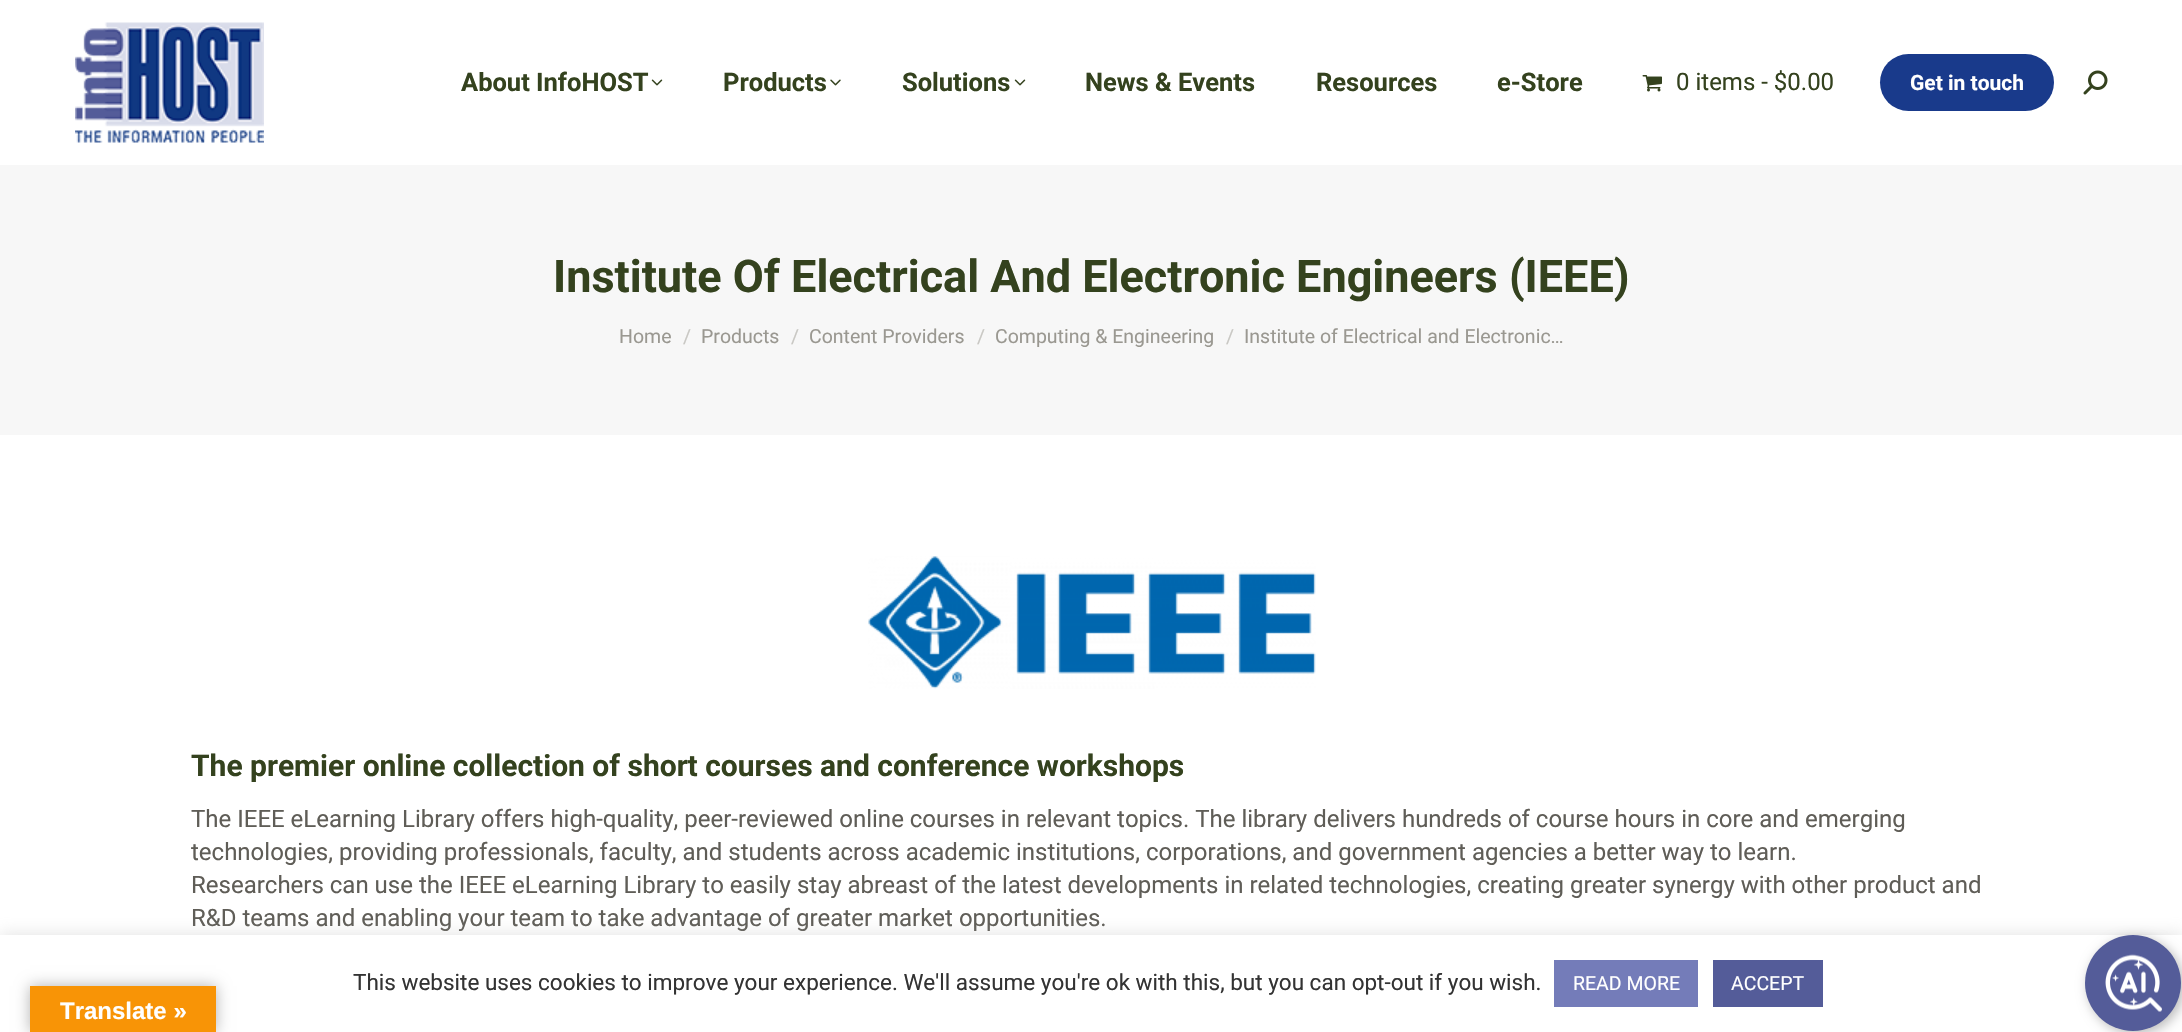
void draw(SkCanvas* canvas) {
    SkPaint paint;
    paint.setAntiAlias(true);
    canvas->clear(0xFFFFFFFF);
    canvas->drawImageRect(SkImages::DeferredFromEncodedData(SkData::MakeFromFileName("img1.png")), SkRect::MakeXYWH(75, 22, 189, 121), SkSamplingOptions());
    SkFont font1(fontMgr->matchFamilyStyle("Roboto", SkFontStyle::Bold()), 25.5f);
    font1.setSubpixel(true);
    paint.setColor(0xFF34421E);
    canvas->drawString("About InfoHOST", 461, 91, font1, paint);
    canvas->drawImageRect(SkImages::DeferredFromEncodedData(SkData::MakeFromFileName("img2.png")), SkRect::MakeXYWH(651, 79, 12, 7), SkSamplingOptions());
    canvas->drawString("Products", 723, 91, font1, paint);
    canvas->drawImageRect(SkImages::DeferredFromEncodedData(SkData::MakeFromFileName("img3.png")), SkRect::MakeXYWH(830, 79, 11, 7), SkSamplingOptions());
    canvas->drawString("Solutions", 902, 91, font1, paint);
    canvas->drawImageRect(SkImages::DeferredFromEncodedData(SkData::MakeFromFileName("img2.png")), SkRect::MakeXYWH(1014, 79, 12, 7), SkSamplingOptions());
    canvas->drawString("News & Events", 1085, 91, font1, paint);
    canvas->drawString("Resources", 1316, 91, font1, paint);
    canvas->drawString("e-Store", 1497, 91, font1, paint);
    canvas->drawImageRect(SkImages::DeferredFromEncodedData(SkData::MakeFromFileName("img4.png")), SkRect::MakeXYWH(1642, 75, 20, 17), SkSamplingOptions());
    SkFont font2(fontMgr->matchFamilyStyle("Roboto", SkFontStyle::Normal()), 24);
    font2.setSubpixel(true);
    canvas->drawString("0 items - $0.00", 1676, 90, font2, paint);
    paint.setColor(0xFF193A8B);
    canvas->drawRoundRect(SkRect::MakeXYWH(1880, 54, 174, 57), 28.5f, 28.5f, paint);
    SkFont font3(fontMgr->matchFamilyStyle("Roboto", SkFontStyle::Bold()), 21);
    font3.setSubpixel(true);
    paint.setColor(0xFFFFFFFF);
    canvas->drawString("Get in touch", 1910, 90, font3, paint);
    canvas->drawImageRect(SkImages::DeferredFromEncodedData(SkData::MakeFromFileName("img5.png")), SkRect::MakeXYWH(2083, 70, 25, 25), SkSamplingOptions());
    paint.setColor(0xFFF7F7F7);
    canvas->drawRect(SkRect::MakeXYWH(0, 165, 2182, 270), paint);
    SkFont font4(fontMgr->matchFamilyStyle("Roboto", SkFontStyle::Bold()), 45);
    font4.setSubpixel(true);
    paint.setColor(0xFF34421E);
    canvas->drawString("Institute Of Electrical And Electronic Engineers (IEEE)", 553, 292, font4, paint);
    SkFont font5(fontMgr->matchFamilyStyle("Roboto", SkFontStyle::Normal()), 19.5f);
    font5.setSubpixel(true);
    paint.setColor(0xFF9A9891);
    canvas->drawString("Home", 619, 343, font5, paint);
    paint.setColor(0xFFC9C8C4);
    canvas->drawString("/", 683, 343, font5, paint);
    paint.setColor(0xFF9A9891);
    canvas->drawString("Products", 701, 343, font5, paint);
    paint.setColor(0xFFC9C8C4);
    canvas->drawString("/", 791, 343, font5, paint);
    paint.setColor(0xFF9A9891);
    canvas->drawString("Content Providers", 809, 343, font5, paint);
    paint.setColor(0xFFC9C8C4);
    canvas->drawString("/", 977, 343, font5, paint);
    paint.setColor(0xFF9A9891);
    canvas->drawString("Computing & Engineering", 995, 343, font5, paint);
    paint.setColor(0xFFC9C8C4);
    canvas->drawString("/", 1226, 343, font5, paint);
    paint.setColor(0xFF9A9891);
    canvas->drawString("Institute of Electrical and Electronic…", 1244, 343, font5, paint);
    canvas->drawImageRect(SkImages::DeferredFromEncodedData(SkData::MakeFromFileName("img6.png")), SkRect::MakeXYWH(868, 556, 448, 133), SkSamplingOptions());
    SkFont font6(fontMgr->matchFamilyStyle("Roboto", SkFontStyle::Bold()), 30);
    font6.setSubpixel(true);
    paint.setColor(0xFF34421E);
    canvas->drawString("The premier online collection of short courses and conference workshops", 191, 776, font6, paint);
    paint.setColor(0xFF5F5D57);
    canvas->drawString("The IEEE eLearning Library offers high-quality, peer-reviewed online courses in relevant topics. The library delivers hundreds of course hours in core and emerging", 191, 827, font2, paint);
    canvas->drawString("technologies, providing professionals, faculty, and students across academic institutions, corporations, and government agencies a better way to learn.", 191, 860, font2, paint);
    canvas->drawString("Researchers can use the IEEE eLearning Library to easily stay abreast of the latest developments in related technologies, creating greater synergy with other product and", 191, 893, font2, paint);
    canvas->drawString("R&D teams and enabling your team to take advantage of greater market opportunities.", 191, 926, font2, paint);
    paint.setColor(0x4DACABAB);
    paint.setMaskFilter(SkMaskFilter::MakeBlur(kNormal_SkBlurStyle, 7.5f));
    canvas->drawRect(SkRect::MakeXYWH(0, 933, 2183, 98), paint);
    paint.setMaskFilter(nullptr);
    paint.setColor(0xFFFFFFFF);
    canvas->drawRect(SkRect::MakeXYWH(0, 935, 2182, 97), paint);
    SkFont font7(fontMgr->matchFamilyStyle("Roboto", SkFontStyle::Normal()), 22.5f);
    font7.setSubpixel(true);
    paint.setColor(0xFF333333);
    canvas->drawString("This website uses cookies to improve your experience. We'll assume you're ok with this, but you can opt-out if you wish.", 353, 990, font7, paint);
    paint.setColor(0xFF747CB9);
    canvas->drawRect(SkRect::MakeXYWH(1554, 960, 144, 47), paint);
    paint.setColor(0xFFFFFFFF);
    canvas->drawString("READ MORE", 1573, 990, font5, paint);
    paint.setColor(0xFF545C99);
    canvas->drawRect(SkRect::MakeXYWH(1713, 960, 110, 47), paint);
    paint.setColor(0xFFFFFFFF);
    canvas->drawString("ACCEPT", 1731, 990, font5, paint);
    paint.setColor(0x45000000);
    paint.setMaskFilter(SkMaskFilter::MakeBlur(kNormal_SkBlurStyle, 6));
    canvas->drawRoundRect(SkRect::MakeXYWH(2088, 938, 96, 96), 48, 48, paint);
    paint.setMaskFilter(nullptr);
    paint.setColor(0xFF545C99);
    canvas->drawCircle(2133, 983, 48, paint);
    canvas->drawImageRect(SkImages::DeferredFromEncodedData(SkData::MakeFromFileName("img7.png")), SkRect::MakeXYWH(2105, 954, 57, 58), SkSamplingOptions());
    paint.setColor(0x4D000000);
    paint.setMaskFilter(SkMaskFilter::MakeBlur(kNormal_SkBlurStyle, 7));
    canvas->drawRect(SkRect::MakeXYWH(30, 986, 186, 46), paint);
    paint.setMaskFilter(nullptr);
    paint.setColor(0xFFF89406);
    canvas->drawRect(SkRect::MakeXYWH(30, 986, 186, 46), paint);
    SkFont font8(fontMgr->matchFamilyStyle("Liberation Sans", SkFontStyle::Bold()), 24);
    font8.setSubpixel(true);
    paint.setColor(0xFFFFFFFF);
    canvas->drawString("Translate »", 60, 1019, font8, paint);
}
